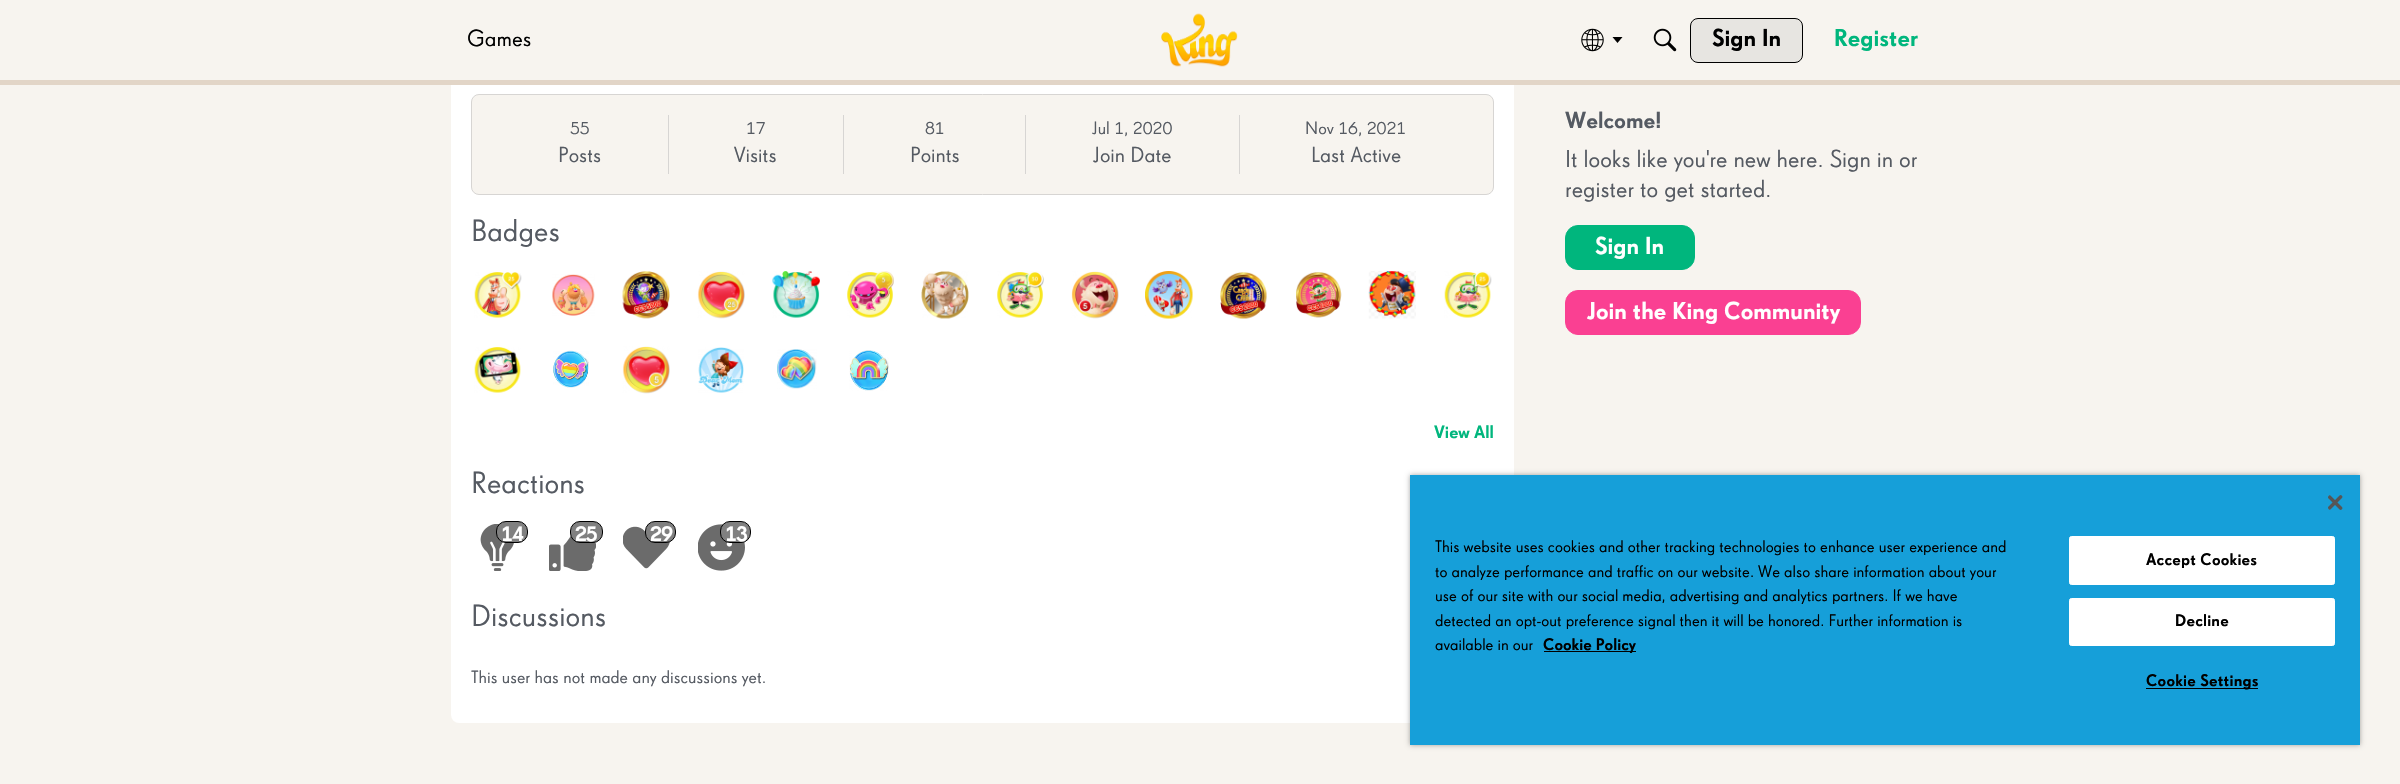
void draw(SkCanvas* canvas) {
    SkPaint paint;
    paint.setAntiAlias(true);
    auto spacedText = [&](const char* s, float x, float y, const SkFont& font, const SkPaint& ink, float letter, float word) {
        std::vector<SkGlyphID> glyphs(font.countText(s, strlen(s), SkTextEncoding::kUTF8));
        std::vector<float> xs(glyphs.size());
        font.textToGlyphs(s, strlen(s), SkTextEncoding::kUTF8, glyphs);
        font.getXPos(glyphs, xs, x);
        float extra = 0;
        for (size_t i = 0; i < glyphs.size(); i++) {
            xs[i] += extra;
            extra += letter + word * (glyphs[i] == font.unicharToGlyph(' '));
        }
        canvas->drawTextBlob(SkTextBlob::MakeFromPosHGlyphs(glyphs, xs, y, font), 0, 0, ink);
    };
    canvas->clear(0xFFF7F4EF);
    paint.setColor(0xFFFFFFFF);
    canvas->drawRoundRect(SkRect::MakeXYWH(451, -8, 1063, 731), 8, 8, paint);
    paint.setColor(0xFFE2D5C7);
    canvas->drawRect(SkRect::MakeXYWH(0, 80, 2400, 5), paint);
    paint.setColor(0xFFF7F4EF);
    canvas->drawRect(SkRect::MakeXYWH(451, 0, 1063, 80), paint);
    SkFont font1(fontMgr->matchFamilyStyle("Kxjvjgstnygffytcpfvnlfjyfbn", SkFontStyle::Normal()), 22.5f);
    font1.setSubpixel(true);
    paint.setColor(0xFF000000);
    canvas->drawString("Games", 467, 46, font1, paint);
    canvas->drawImageRect(SkImages::DeferredFromEncodedData(SkData::MakeFromFileName("img1.png")), SkRect::MakeXYWH(1161, 13, 77, 54), SkSamplingOptions());
    canvas->drawImageRect(SkImages::DeferredFromEncodedData(SkData::MakeFromFileName("img2.png")), SkRect::MakeXYWH(1581, 28, 23, 24), SkSamplingOptions());
    canvas->drawPath(SkPathBuilder().moveTo(1612.5f, 37).lineTo(1622.5f, 37).lineTo(1617.5f, 43).close().detach(), paint);
    canvas->drawImageRect(SkImages::DeferredFromEncodedData(SkData::MakeFromFileName("img3.png")), SkRect::MakeXYWH(1653, 28, 24, 24), SkSamplingOptions());
    paint.setColor(0xFFE7E5E1);
    canvas->drawRoundRect(SkRect::MakeXYWH(1690.5f, 18.5f, 112, 44), 7.5f, 7.5f, paint);
    paint.setStyle(SkPaint::kStroke_Style);
    paint.setStrokeWidth(1);
    paint.setColor(0xFF000000);
    canvas->drawRoundRect(SkRect::MakeXYWH(1690.5f, 18.5f, 112, 44), 7.5f, 7.5f, paint);
    SkFont font2(fontMgr->matchFamilyStyle("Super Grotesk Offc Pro", SkFontStyle(500, SkFontStyle::kNormal_Width, SkFontStyle::kUpright_Slant)), 23.75f);
    font2.setSubpixel(true);
    paint.setStyle(SkPaint::kFill_Style);
    canvas->drawString("Sign In", 1712, 46, font2, paint);
    paint.setColor(0xFF00B67D);
    canvas->drawString("Register", 1834, 46, font2, paint);
    paint.setColor(0xFFF7F4EF);
    canvas->drawRoundRect(SkRect::MakeXYWH(471.5f, 94.5f, 1022, 100), 7.5f, 7.5f, paint);
    paint.setStyle(SkPaint::kStroke_Style);
    paint.setColor(0xFFD7D5D3);
    canvas->drawRoundRect(SkRect::MakeXYWH(471.5f, 94.5f, 1022, 100), 7.5f, 7.5f, paint);
    paint.setStyle(SkPaint::kFill_Style);
    canvas->drawRect(SkRect::MakeXYWH(668, 115, 1, 59), paint);
    SkFont font3(fontMgr->matchFamilyStyle("Kxjvjgstnygffytcpfvnlfjyfbn", SkFontStyle::Normal()), 17.5f);
    font3.setSubpixel(true);
    paint.setColor(0xFF555A62);
    canvas->drawString("55", 570, 134, font3, paint);
    SkFont font4(fontMgr->matchFamilyStyle("Kxjvjgstnygffytcpfvnlfjyfbn", SkFontStyle::Normal()), 21.25f);
    font4.setSubpixel(true);
    canvas->drawString("Posts", 558, 162, font4, paint);
    paint.setColor(0xFFD7D5D3);
    canvas->drawRect(SkRect::MakeXYWH(843, 115, 1, 59), paint);
    paint.setColor(0xFF555A62);
    canvas->drawString("17", 746, 134, font3, paint);
    canvas->drawString("Visits", 734, 162, font4, paint);
    paint.setColor(0xFFD7D5D3);
    canvas->drawRect(SkRect::MakeXYWH(1025, 115, 1, 59), paint);
    paint.setColor(0xFF555A62);
    canvas->drawString("81", 925, 134, font3, paint);
    canvas->drawString("Points", 910, 162, font4, paint);
    paint.setColor(0xFFD7D5D3);
    canvas->drawRect(SkRect::MakeXYWH(1239, 115, 1, 59), paint);
    paint.setColor(0xFF555A62);
    canvas->drawString("Jul 1, 2020", 1092, 134, font3, paint);
    canvas->drawString("Join Date", 1093, 162, font4, paint);
    canvas->drawString("Nov 16, 2021", 1305, 134, font3, paint);
    canvas->drawString("Last Active", 1311, 162, font4, paint);
    SkFont font5(fontMgr->matchFamilyStyle("Kxjvjgstnygffytcpfvnlfjyfbn", SkFontStyle::Normal()), 30);
    font5.setSubpixel(true);
    canvas->drawString("Badges", 471, 241, font5, paint);
    canvas->drawImageRect(SkImages::DeferredFromEncodedData(SkData::MakeFromFileName("img4.png")), SkRect::MakeXYWH(474, 272, 48, 46), SkSamplingOptions());
    canvas->drawImageRect(SkImages::DeferredFromEncodedData(SkData::MakeFromFileName("img5.png")), SkRect::MakeXYWH(552, 274, 43, 42), SkSamplingOptions());
    canvas->drawImageRect(SkImages::DeferredFromEncodedData(SkData::MakeFromFileName("img6.png")), SkRect::MakeXYWH(622, 271, 48, 48), SkSamplingOptions());
    canvas->drawImageRect(SkImages::DeferredFromEncodedData(SkData::MakeFromFileName("img7.png")), SkRect::MakeXYWH(697, 271, 48, 48), SkSamplingOptions());
    canvas->drawImageRect(SkImages::DeferredFromEncodedData(SkData::MakeFromFileName("img8.png")), SkRect::MakeXYWH(772, 271, 48, 47), SkSamplingOptions());
    canvas->drawImageRect(SkImages::DeferredFromEncodedData(SkData::MakeFromFileName("img9.png")), SkRect::MakeXYWH(847, 271, 47, 47), SkSamplingOptions());
    canvas->drawImageRect(SkImages::DeferredFromEncodedData(SkData::MakeFromFileName("img10.png")), SkRect::MakeXYWH(921, 271, 48, 48), SkSamplingOptions());
    canvas->drawImageRect(SkImages::DeferredFromEncodedData(SkData::MakeFromFileName("img11.png")), SkRect::MakeXYWH(997, 271, 47, 47), SkSamplingOptions());
    canvas->drawImageRect(SkImages::DeferredFromEncodedData(SkData::MakeFromFileName("img12.png")), SkRect::MakeXYWH(1071, 271, 48, 48), SkSamplingOptions());
    canvas->drawImageRect(SkImages::DeferredFromEncodedData(SkData::MakeFromFileName("img13.png")), SkRect::MakeXYWH(1145, 271, 48, 48), SkSamplingOptions());
    canvas->drawImageRect(SkImages::DeferredFromEncodedData(SkData::MakeFromFileName("img14.png")), SkRect::MakeXYWH(1220, 272, 47, 47), SkSamplingOptions());
    canvas->drawImageRect(SkImages::DeferredFromEncodedData(SkData::MakeFromFileName("img15.png")), SkRect::MakeXYWH(1296, 272, 46, 46), SkSamplingOptions());
    canvas->drawImageRect(SkImages::DeferredFromEncodedData(SkData::MakeFromFileName("img16.png")), SkRect::MakeXYWH(1368, 271, 48, 48), SkSamplingOptions());
    canvas->drawImageRect(SkImages::DeferredFromEncodedData(SkData::MakeFromFileName("img17.png")), SkRect::MakeXYWH(1444, 271, 48, 47), SkSamplingOptions());
    canvas->drawImageRect(SkImages::DeferredFromEncodedData(SkData::MakeFromFileName("img18.png")), SkRect::MakeXYWH(474, 347, 47, 46), SkSamplingOptions());
    canvas->drawImageRect(SkImages::DeferredFromEncodedData(SkData::MakeFromFileName("img19.png")), SkRect::MakeXYWH(553, 350, 36, 38), SkSamplingOptions());
    canvas->drawImageRect(SkImages::DeferredFromEncodedData(SkData::MakeFromFileName("img20.png")), SkRect::MakeXYWH(622, 346, 48, 48), SkSamplingOptions());
    canvas->drawImageRect(SkImages::DeferredFromEncodedData(SkData::MakeFromFileName("img21.png")), SkRect::MakeXYWH(698, 347, 46, 46), SkSamplingOptions());
    canvas->drawImageRect(SkImages::DeferredFromEncodedData(SkData::MakeFromFileName("img22.png")), SkRect::MakeXYWH(777, 349, 40, 40), SkSamplingOptions());
    canvas->drawImageRect(SkImages::DeferredFromEncodedData(SkData::MakeFromFileName("img23.png")), SkRect::MakeXYWH(849, 350, 40, 41), SkSamplingOptions());
    SkFont font6(fontMgr->matchFamilyStyle("Super Grotesk Offc Pro", SkFontStyle(500, SkFontStyle::kNormal_Width, SkFontStyle::kUpright_Slant)), 17.5f);
    font6.setSubpixel(true);
    paint.setColor(0xFF00B67D);
    canvas->drawString("View All", 1434, 438, font6, paint);
    paint.setColor(0xFF555A62);
    canvas->drawString("Reactions", 471, 493, font5, paint);
    canvas->drawImageRect(SkImages::DeferredFromEncodedData(SkData::MakeFromFileName("img24.png")), SkRect::MakeXYWH(480, 524, 34, 47), SkSamplingOptions());
    paint.setColor(0xFF808080);
    canvas->drawRoundRect(SkRect::MakeXYWH(496.5f, 521.5f, 31, 21), 9.5f, 9.5f, paint);
    paint.setStyle(SkPaint::kStroke_Style);
    paint.setColor(0xFF000000);
    canvas->drawRoundRect(SkRect::MakeXYWH(496.5f, 521.5f, 31, 21), 9.5f, 9.5f, paint);
    SkFont font7(fontMgr->matchFamilyStyle("Super Grotesk Offc Pro", SkFontStyle(500, SkFontStyle::kNormal_Width, SkFontStyle::kUpright_Slant)), 21.25f);
    font7.setSubpixel(true);
    paint.setStyle(SkPaint::kFill_Style);
    paint.setColor(0xFFFFFFFF);
    spacedText("14", 501, 541, font7, paint, -1, 0);
    canvas->drawImageRect(SkImages::DeferredFromEncodedData(SkData::MakeFromFileName("img25.png")), SkRect::MakeXYWH(549, 536, 47, 35), SkSamplingOptions());
    paint.setColor(0xFF808080);
    canvas->drawRoundRect(SkRect::MakeXYWH(570.5f, 521.5f, 32, 21), 9.5f, 9.5f, paint);
    paint.setStyle(SkPaint::kStroke_Style);
    paint.setColor(0xFF000000);
    canvas->drawRoundRect(SkRect::MakeXYWH(570.5f, 521.5f, 32, 21), 9.5f, 9.5f, paint);
    paint.setStyle(SkPaint::kFill_Style);
    paint.setColor(0xFFFFFFFF);
    spacedText("25", 575, 541, font7, paint, -1, 0);
    canvas->drawImageRect(SkImages::DeferredFromEncodedData(SkData::MakeFromFileName("img26.png")), SkRect::MakeXYWH(623, 526, 47, 43), SkSamplingOptions());
    paint.setColor(0xFF808080);
    canvas->drawRoundRect(SkRect::MakeXYWH(645.5f, 521.5f, 30, 21), 9.5f, 9.5f, paint);
    paint.setStyle(SkPaint::kStroke_Style);
    paint.setColor(0xFF000000);
    canvas->drawRoundRect(SkRect::MakeXYWH(645.5f, 521.5f, 30, 21), 9.5f, 9.5f, paint);
    paint.setStyle(SkPaint::kFill_Style);
    paint.setColor(0xFFFFFFFF);
    spacedText("29", 650, 541, font7, paint, -1, 0);
    canvas->drawImageRect(SkImages::DeferredFromEncodedData(SkData::MakeFromFileName("img27.png")), SkRect::MakeXYWH(698, 524, 47, 47), SkSamplingOptions());
    paint.setColor(0xFF808080);
    canvas->drawRoundRect(SkRect::MakeXYWH(720.5f, 521.5f, 30, 21), 9.5f, 9.5f, paint);
    paint.setStyle(SkPaint::kStroke_Style);
    paint.setColor(0xFF000000);
    canvas->drawRoundRect(SkRect::MakeXYWH(720.5f, 521.5f, 30, 21), 9.5f, 9.5f, paint);
    paint.setStyle(SkPaint::kFill_Style);
    paint.setColor(0xFFFFFFFF);
    spacedText("13", 725, 541, font7, paint, -1, 0);
    paint.setColor(0xFF555A62);
    canvas->drawString("Discussions", 471, 626, font5, paint);
    canvas->drawString("This user has not made any discussions yet.", 471, 683, font3, paint);
    SkFont font8(fontMgr->matchFamilyStyle("Super Grotesk Offc Pro", SkFontStyle(500, SkFontStyle::kNormal_Width, SkFontStyle::kUpright_Slant)), 22.5f);
    font8.setSubpixel(true);
    canvas->drawString("Welcome!", 1565, 128, font8, paint);
    SkFont font9(fontMgr->matchFamilyStyle("Kxjvjgstnygffytcpfvnlfjyfbn", SkFontStyle::Normal()), 23.75f);
    font9.setSubpixel(true);
    canvas->drawString("It looks like you're new here. Sign in or", 1565, 167, font9, paint);
    canvas->drawString("register to get started.", 1565, 197, font9, paint);
    paint.setColor(0xFF00B67D);
    canvas->drawRoundRect(SkRect::MakeXYWH(1565.5f, 225.5f, 129, 44), 12.5f, 12.5f, paint);
    paint.setStyle(SkPaint::kStroke_Style);
    canvas->drawRoundRect(SkRect::MakeXYWH(1565.5f, 225.5f, 129, 44), 12.5f, 12.5f, paint);
    paint.setStyle(SkPaint::kFill_Style);
    paint.setColor(0xFFFFFFFF);
    canvas->drawString("Sign In", 1595, 254, font2, paint);
    paint.setColor(0xFFFA4092);
    canvas->drawRoundRect(SkRect::MakeXYWH(1565.5f, 290.5f, 295, 44), 12.5f, 12.5f, paint);
    paint.setStyle(SkPaint::kStroke_Style);
    canvas->drawRoundRect(SkRect::MakeXYWH(1565.5f, 290.5f, 295, 44), 12.5f, 12.5f, paint);
    paint.setStyle(SkPaint::kFill_Style);
    paint.setColor(0xFFFFFFFF);
    canvas->drawString("Join the King Community", 1587, 319, font2, paint);
    paint.setColor(0x59000000);
    paint.setMaskFilter(SkMaskFilter::MakeBlur(kNormal_SkBlurStyle, 2.5f));
    canvas->drawRect(SkRect::MakeXYWH(1410, 475, 950, 270), paint);
    paint.setMaskFilter(nullptr);
    paint.setColor(0xFF169FD9);
    canvas->drawRect(SkRect::MakeXYWH(1410, 475, 950, 270), paint);
    canvas->drawImageRect(SkImages::DeferredFromEncodedData(SkData::MakeFromFileName("img28.png")), SkRect::MakeXYWH(2328, 495, 15, 15), SkSamplingOptions());
    SkFont font10(fontMgr->matchFamilyStyle("Kxjvjgstnygffytcpfvnlfjyfbn", SkFontStyle::Normal()), 16.25f);
    font10.setSubpixel(true);
    paint.setColor(0xFF000000);
    canvas->drawString("This website uses cookies and other tracking technologies to enhance user experience and", 1435, 552, font10, paint);
    canvas->drawString("to analyze performance and traffic on our website. We also share information about your", 1435, 577, font10, paint);
    canvas->drawString("use of our site with our social media, advertising and analytics partners. If we have", 1435, 601, font10, paint);
    canvas->drawString("detected an opt-out preference signal then it will be honored. Further information is", 1435, 626, font10, paint);
    canvas->drawString("available in our", 1435, 650, font10, paint);
    canvas->drawRect(SkRect::MakeXYWH(1544, 651, 92, 1), paint);
    SkFont font11(fontMgr->matchFamilyStyle("Super Grotesk Offc Pro", SkFontStyle(500, SkFontStyle::kNormal_Width, SkFontStyle::kUpright_Slant)), 16.25f);
    font11.setSubpixel(true);
    canvas->drawString("Cookie Policy", 1543, 650, font11, paint);
    paint.setColor(0xFFFFFFFF);
    canvas->drawRoundRect(SkRect::MakeXYWH(2069.5f, 536.5f, 265, 48), 2, 2, paint);
    paint.setStyle(SkPaint::kStroke_Style);
    canvas->drawRoundRect(SkRect::MakeXYWH(2069.5f, 536.5f, 265, 48), 2, 2, paint);
    paint.setStyle(SkPaint::kFill_Style);
    paint.setColor(0xFF000000);
    spacedText("Accept Cookies", 2146, 565, font11, paint, 0.2f, 0);
    paint.setColor(0xFFFFFFFF);
    canvas->drawRoundRect(SkRect::MakeXYWH(2069.5f, 598.5f, 265, 47), 2, 2, paint);
    paint.setStyle(SkPaint::kStroke_Style);
    canvas->drawRoundRect(SkRect::MakeXYWH(2069.5f, 598.5f, 265, 47), 2, 2, paint);
    paint.setStyle(SkPaint::kFill_Style);
    paint.setColor(0xFF000000);
    spacedText("Decline", 2175, 626, font11, paint, 0.2f, 0);
    canvas->drawRect(SkRect::MakeXYWH(2146, 688, 112, 1), paint);
    spacedText("Cookie Settings", 2146, 686, font11, paint, 0.2f, 0);
}
